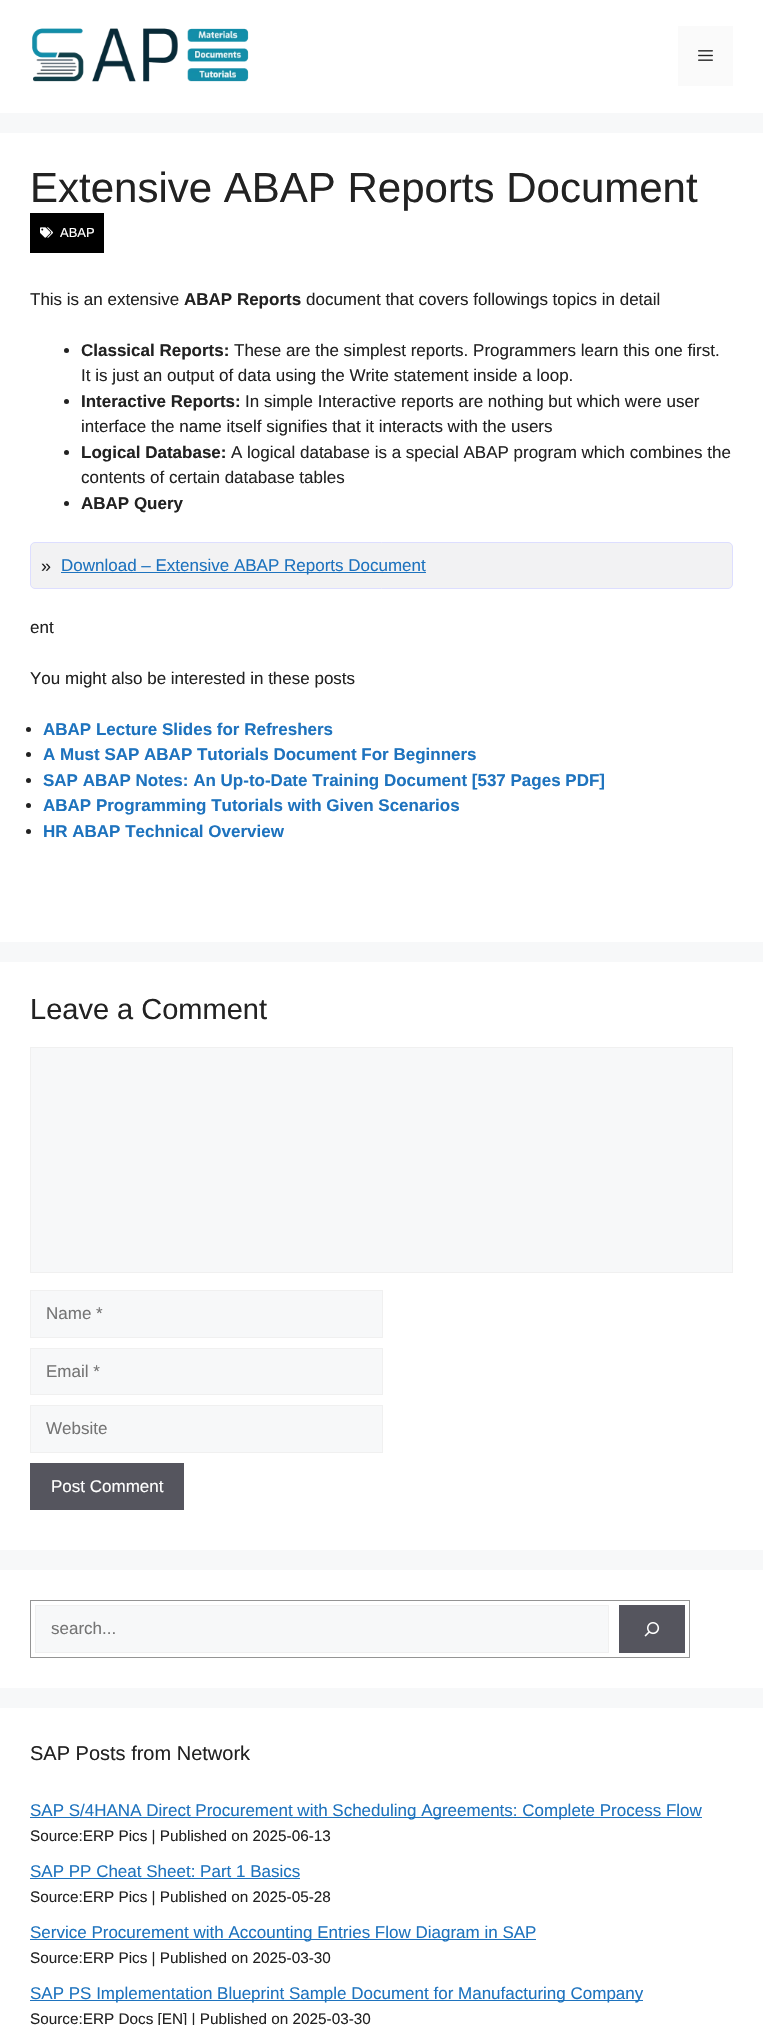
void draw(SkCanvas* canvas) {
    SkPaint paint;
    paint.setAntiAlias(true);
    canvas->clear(0xFFF7F8F9);
    paint.setColor(0xFFFFFFFF);
    canvas->drawRect(SkRect::MakeXYWH(0, 0, 763, 113), paint);
    canvas->drawImageRect(SkImages::DeferredFromEncodedData(SkData::MakeFromFileName("img1.png")), SkRect::MakeXYWH(32, 28, 217, 54), SkSamplingOptions());
    paint.setColor(0xFFFAFAFA);
    canvas->drawRect(SkRect::MakeXYWH(678, 26, 55, 60), paint);
    canvas->drawImageRect(SkImages::DeferredFromEncodedData(SkData::MakeFromFileName("img2.png")), SkRect::MakeXYWH(698, 50, 15, 11), SkSamplingOptions());
    paint.setColor(0xFFFFFFFF);
    canvas->drawRect(SkRect::MakeXYWH(0, 133, 763, 809), paint);
    SkFont font1(fontMgr->matchFamilyStyle("Liberation Sans", SkFontStyle::Normal()), 42);
    font1.setSubpixel(true);
    paint.setColor(0xFF222222);
    canvas->drawString("Extensive ABAP Reports Document", 30, 202, font1, paint);
    paint.setColor(0xFF000000);
    canvas->drawRect(SkRect::MakeXYWH(30, 213, 74, 40), paint);
    canvas->drawImageRect(SkImages::DeferredFromEncodedData(SkData::MakeFromFileName("img3.png")), SkRect::MakeXYWH(40, 227, 13, 11), SkSamplingOptions());
    SkFont font2(fontMgr->matchFamilyStyle("Liberation Sans", SkFontStyle::Normal()), 13);
    font2.setSubpixel(true);
    paint.setColor(0xFFFFFFFF);
    canvas->drawString("ABAP", 60, 237, font2, paint);
    SkFont font3(fontMgr->matchFamilyStyle("Liberation Sans", SkFontStyle::Normal()), 17);
    font3.setSubpixel(true);
    paint.setColor(0xFF222222);
    canvas->drawString("This is an extensive", 30, 305, font3, paint);
    SkFont font4(fontMgr->matchFamilyStyle("Liberation Sans", SkFontStyle::Bold()), 17);
    font4.setSubpixel(true);
    canvas->drawString("ABAP Reports", 184, 305, font4, paint);
    canvas->drawString("document that covers followings topics in detail", 306, 305, font3, paint);
    canvas->drawCircle(66.5f, 350.5f, 2.5f, paint);
    canvas->drawString("Classical Reports:", 81, 356, font4, paint);
    canvas->drawString("These are the simplest reports. Programmers learn this one first.", 234, 356, font3, paint);
    canvas->drawString("It is just an output of data using the Write statement inside a loop.", 81, 381, font3, paint);
    canvas->drawCircle(66.5f, 401.5f, 2.5f, paint);
    canvas->drawString("Interactive Reports:", 81, 407, font4, paint);
    canvas->drawString("In simple Interactive reports are nothing but which were user", 245, 407, font3, paint);
    canvas->drawString("interface the name itself signifies that it interacts with the users", 81, 432, font3, paint);
    canvas->drawCircle(66.5f, 452.5f, 2.5f, paint);
    canvas->drawString("Logical Database:", 81, 458, font4, paint);
    canvas->drawString("A logical database is a special ABAP program which combines the", 231, 458, font3, paint);
    canvas->drawString("contents of certain database tables", 81, 483, font3, paint);
    canvas->drawCircle(66.5f, 503.5f, 2.5f, paint);
    canvas->drawString("ABAP Query", 81, 509, font4, paint);
    paint.setColor(0xFFF2F2F3);
    canvas->drawRoundRect(SkRect::MakeXYWH(30.5f, 542.5f, 702, 46), 4.5f, 4.5f, paint);
    paint.setStyle(SkPaint::kStroke_Style);
    paint.setStrokeWidth(1);
    paint.setColor(0xFFDDDEFF);
    canvas->drawRoundRect(SkRect::MakeXYWH(30.5f, 542.5f, 702, 46), 4.5f, 4.5f, paint);
    SkFont font5(fontMgr->matchFamilyStyle("Liberation Sans", SkFontStyle::Normal()), 18);
    font5.setSubpixel(true);
    paint.setStyle(SkPaint::kFill_Style);
    paint.setColor(0xFF222222);
    canvas->drawString("»", 41, 572, font5, paint);
    paint.setColor(0xFF1E73BE);
    canvas->drawRect(SkRect::MakeXYWH(61, 572, 365, 1), paint);
    canvas->drawString("Download – Extensive ABAP Reports Document", 61, 571, font3, paint);
    paint.setColor(0xFF222222);
    canvas->drawString("ent", 30, 633, font3, paint);
    canvas->drawString("You might also be interested in these posts", 30, 684, font3, paint);
    canvas->drawCircle(28.5f, 729.5f, 2.5f, paint);
    paint.setColor(0xFF1E73BE);
    canvas->drawString("ABAP Lecture Slides for Refreshers", 43, 735, font4, paint);
    paint.setColor(0xFF222222);
    canvas->drawCircle(28.5f, 754.5f, 2.5f, paint);
    paint.setColor(0xFF1E73BE);
    canvas->drawString("A Must SAP ABAP Tutorials Document For Beginners", 43, 760, font4, paint);
    paint.setColor(0xFF222222);
    canvas->drawCircle(28.5f, 780.5f, 2.5f, paint);
    paint.setColor(0xFF1E73BE);
    canvas->drawString("SAP ABAP Notes: An Up-to-Date Training Document [537 Pages PDF]", 43, 786, font4, paint);
    paint.setColor(0xFF222222);
    canvas->drawCircle(28.5f, 805.5f, 2.5f, paint);
    paint.setColor(0xFF1E73BE);
    canvas->drawString("ABAP Programming Tutorials with Given Scenarios", 43, 811, font4, paint);
    paint.setColor(0xFF222222);
    canvas->drawCircle(28.5f, 831.5f, 2.5f, paint);
    paint.setColor(0xFF1E73BE);
    canvas->drawString("HR ABAP Technical Overview", 43, 837, font4, paint);
    paint.setColor(0xFFFFFFFF);
    canvas->drawRect(SkRect::MakeXYWH(0, 962, 763, 588), paint);
    SkFont font6(fontMgr->matchFamilyStyle("Liberation Sans", SkFontStyle::Normal()), 29);
    font6.setSubpixel(true);
    paint.setColor(0xFF222222);
    canvas->drawString("Leave a Comment", 30, 1019, font6, paint);
    paint.setColor(0xFFF7F8F9);
    canvas->drawRect(SkRect::MakeXYWH(30.5f, 1047.5f, 702, 225), paint);
    paint.setStyle(SkPaint::kStroke_Style);
    paint.setColor(0xFFF0F0F0);
    canvas->drawRect(SkRect::MakeXYWH(30.5f, 1047.5f, 702, 225), paint);
    paint.setStyle(SkPaint::kFill_Style);
    paint.setColor(0xFFF7F8F9);
    canvas->drawRect(SkRect::MakeXYWH(30.5f, 1290.5f, 352, 47), paint);
    paint.setStyle(SkPaint::kStroke_Style);
    paint.setColor(0xFFF0F0F0);
    canvas->drawRect(SkRect::MakeXYWH(30.5f, 1290.5f, 352, 47), paint);
    paint.setStyle(SkPaint::kFill_Style);
    paint.setColor(0xFF757575);
    canvas->drawString("Name *", 46, 1319, font3, paint);
    paint.setColor(0xFFF7F8F9);
    canvas->drawRect(SkRect::MakeXYWH(30.5f, 1348.5f, 352, 46), paint);
    paint.setStyle(SkPaint::kStroke_Style);
    paint.setColor(0xFFF0F0F0);
    canvas->drawRect(SkRect::MakeXYWH(30.5f, 1348.5f, 352, 46), paint);
    paint.setStyle(SkPaint::kFill_Style);
    paint.setColor(0xFF757575);
    canvas->drawString("Email *", 46, 1377, font3, paint);
    paint.setColor(0xFFF7F8F9);
    canvas->drawRect(SkRect::MakeXYWH(30.5f, 1405.5f, 352, 47), paint);
    paint.setStyle(SkPaint::kStroke_Style);
    paint.setColor(0xFFF0F0F0);
    canvas->drawRect(SkRect::MakeXYWH(30.5f, 1405.5f, 352, 47), paint);
    paint.setStyle(SkPaint::kFill_Style);
    paint.setColor(0xFF757575);
    canvas->drawString("Website", 46, 1434, font3, paint);
    paint.setColor(0xFF55555E);
    canvas->drawRect(SkRect::MakeXYWH(30, 1463, 154, 47), paint);
    paint.setColor(0xFFFFFFFF);
    canvas->drawString("Post Comment", 51, 1492, font3, paint);
    canvas->drawRect(SkRect::MakeXYWH(0, 1570, 763, 118), paint);
    paint.setStyle(SkPaint::kStroke_Style);
    paint.setColor(0xFF949494);
    canvas->drawRect(SkRect::MakeXYWH(30.5f, 1600.5f, 659, 57), paint);
    paint.setStyle(SkPaint::kFill_Style);
    paint.setColor(0xFFF7F8F9);
    canvas->drawRect(SkRect::MakeXYWH(35.5f, 1605.5f, 573, 47), paint);
    paint.setStyle(SkPaint::kStroke_Style);
    paint.setColor(0xFFF0F0F0);
    canvas->drawRect(SkRect::MakeXYWH(35.5f, 1605.5f, 573, 47), paint);
    paint.setStyle(SkPaint::kFill_Style);
    paint.setColor(0xFF757575);
    canvas->drawString("search...", 51, 1634, font3, paint);
    paint.setColor(0xFF55555E);
    canvas->drawRect(SkRect::MakeXYWH(619, 1605, 66, 48), paint);
    canvas->drawImageRect(SkImages::DeferredFromEncodedData(SkData::MakeFromFileName("img4.png")), SkRect::MakeXYWH(644, 1622, 16, 15), SkSamplingOptions());
    paint.setColor(0xFFFFFFFF);
    canvas->drawRect(SkRect::MakeXYWH(0, 1708, 763, 317), paint);
    SkFont font7(fontMgr->matchFamilyStyle("Liberation Sans", SkFontStyle::Normal()), 20);
    font7.setSubpixel(true);
    paint.setColor(0xFF222222);
    canvas->drawString("SAP Posts from Network", 30, 1760, font7, paint);
    paint.setColor(0xFF1E73BE);
    canvas->drawRect(SkRect::MakeXYWH(30, 1817, 672, 1), paint);
    canvas->drawString("SAP S/4HANA Direct Procurement with Scheduling Agreements: Complete Process Flow", 30, 1816, font3, paint);
    SkFont font8(fontMgr->matchFamilyStyle("Liberation Sans", SkFontStyle::Normal()), 15.3f);
    font8.setSubpixel(true);
    paint.setColor(0xFF222222);
    canvas->drawString("Source:ERP Pics | Published on 2025-06-13", 30, 1841, font8, paint);
    paint.setColor(0xFF1E73BE);
    canvas->drawString("SAP PP Cheat Sheet: Part 1 Basics", 30, 1877, font3, paint);
    canvas->drawRect(SkRect::MakeXYWH(30, 1878, 270, 1), paint);
    paint.setColor(0xFF222222);
    canvas->drawString("Source:ERP Pics | Published on 2025-05-28", 30, 1902, font8, paint);
    paint.setColor(0xFF1E73BE);
    canvas->drawRect(SkRect::MakeXYWH(30, 1939, 506, 1), paint);
    canvas->drawString("Service Procurement with Accounting Entries Flow Diagram in SAP", 30, 1938, font3, paint);
    paint.setColor(0xFF222222);
    canvas->drawString("Source:ERP Pics | Published on 2025-03-30", 30, 1963, font8, paint);
    paint.setColor(0xFF1E73BE);
    canvas->drawRect(SkRect::MakeXYWH(30, 2000, 613, 1), paint);
    canvas->drawString("SAP PS Implementation Blueprint Sample Document for Manufacturing Company", 30, 1999, font3, paint);
    paint.setColor(0xFF222222);
    canvas->drawString("Source:ERP Docs [EN] | Published on 2025-03-30", 30, 2024, font8, paint);
}
